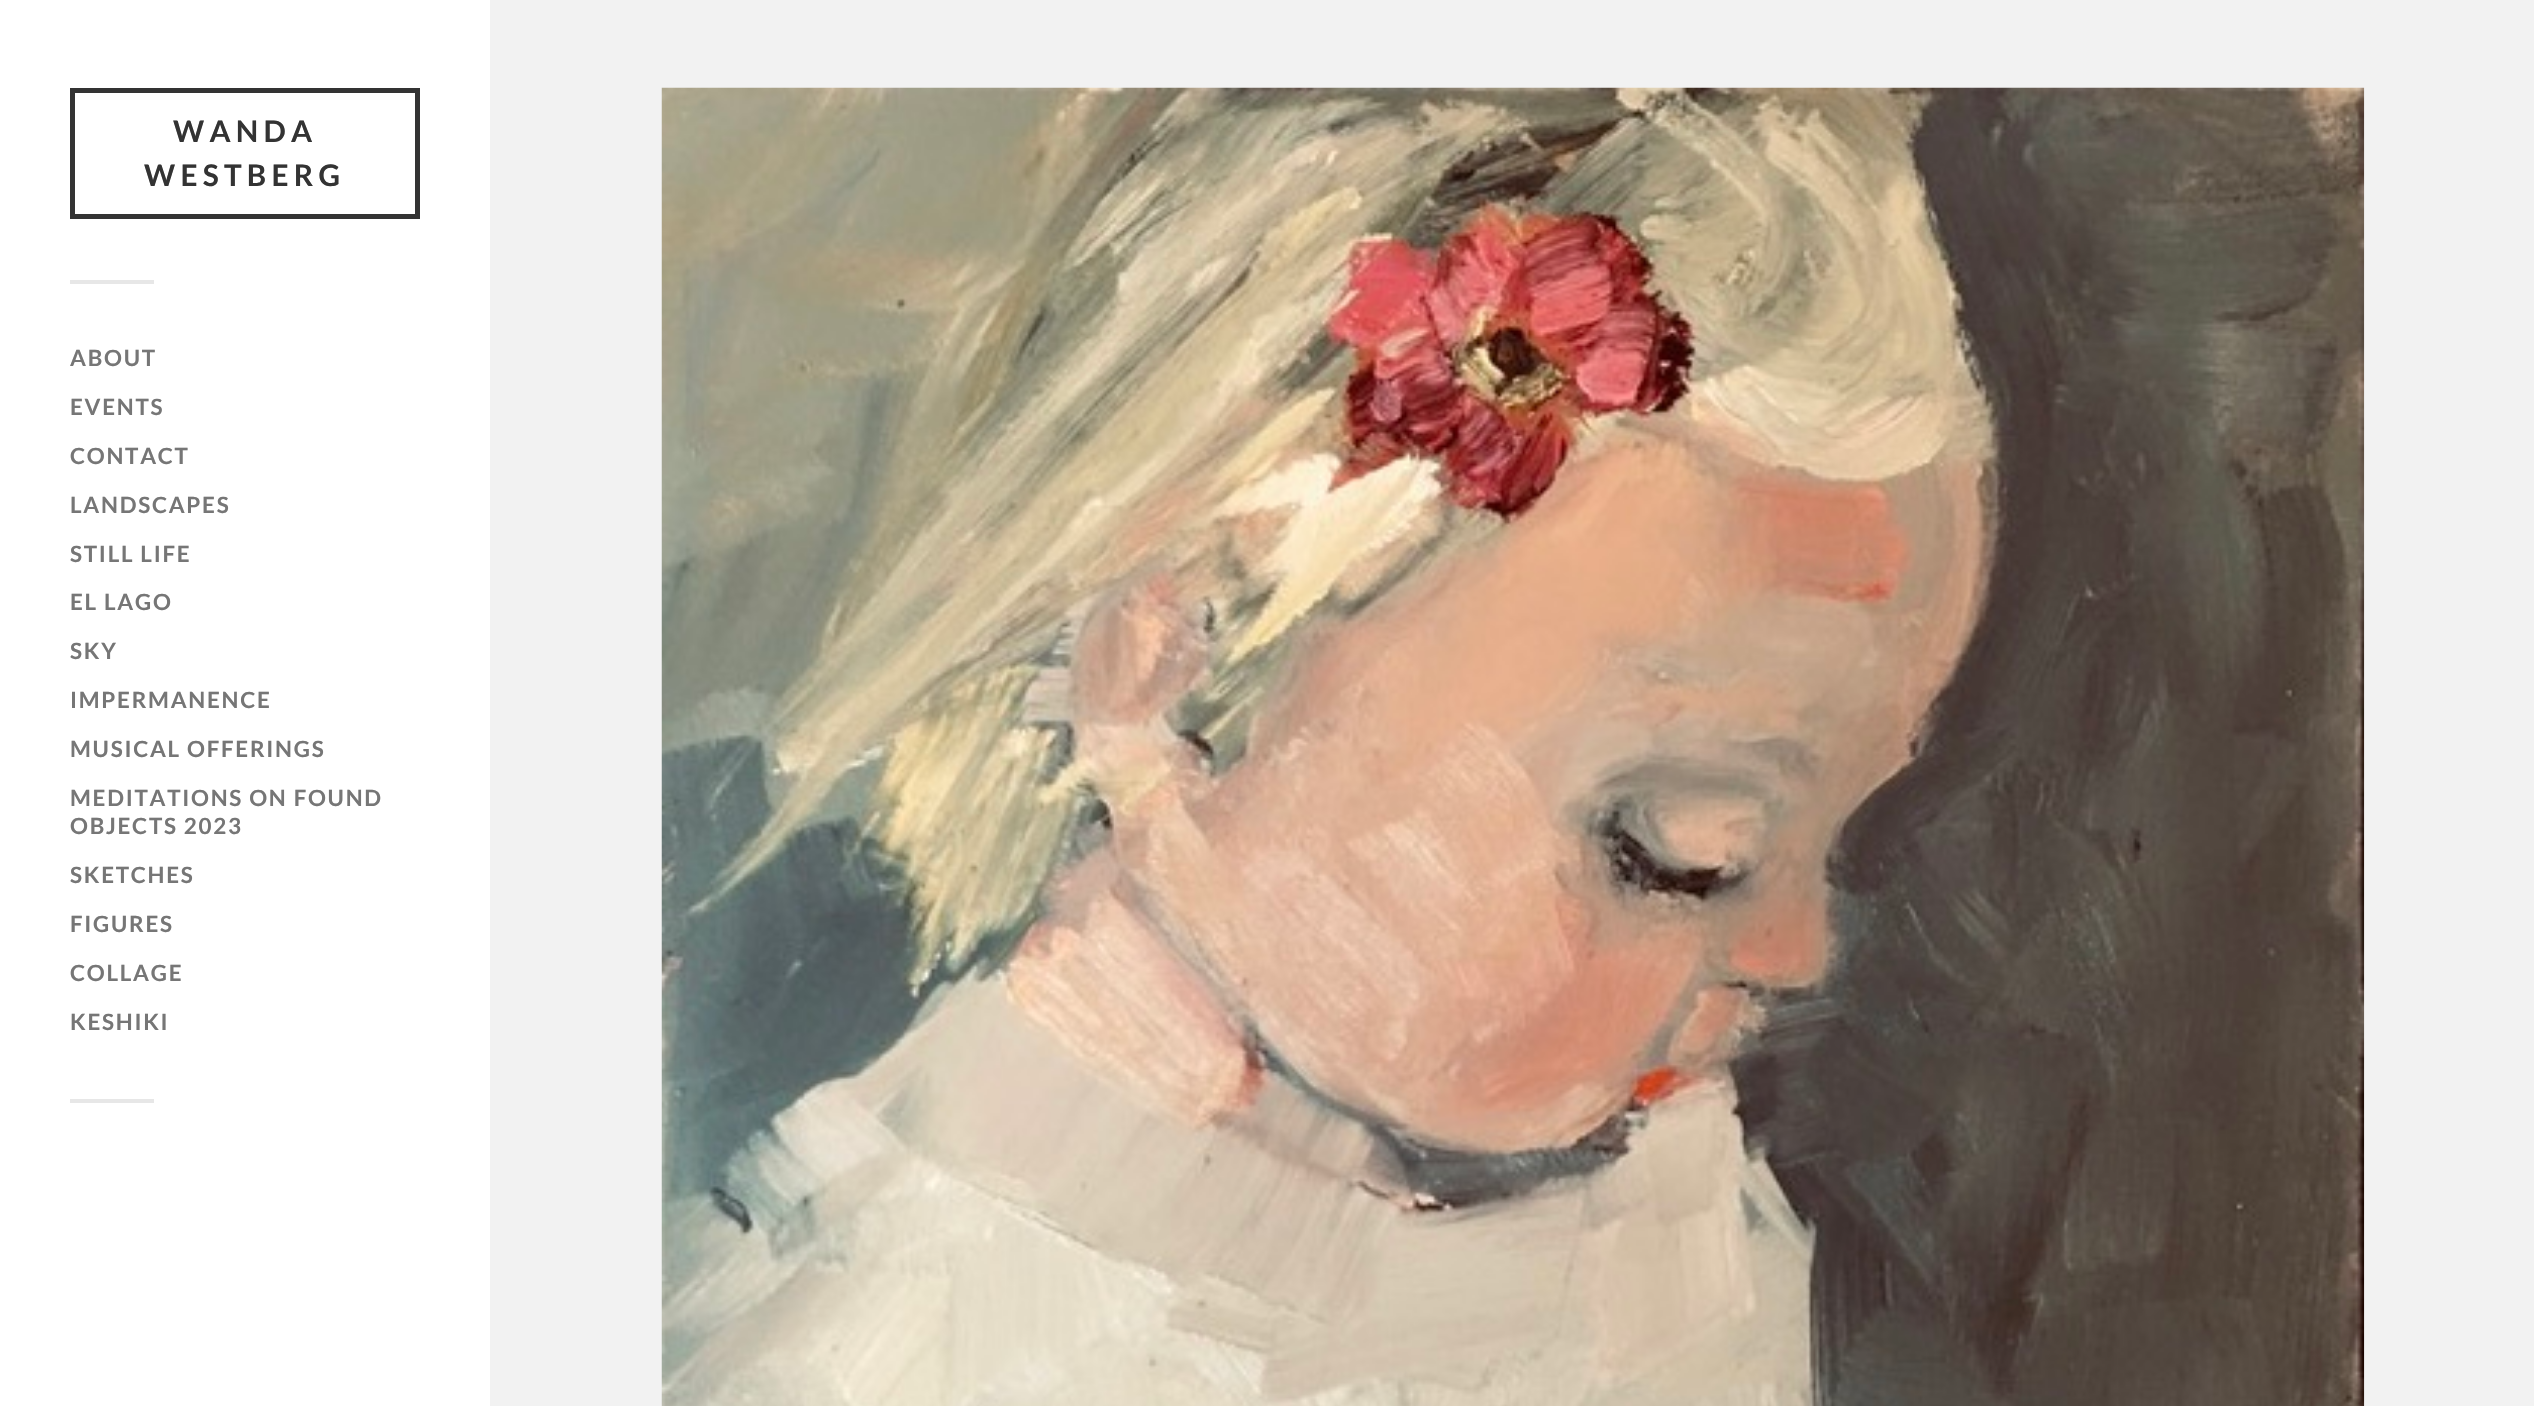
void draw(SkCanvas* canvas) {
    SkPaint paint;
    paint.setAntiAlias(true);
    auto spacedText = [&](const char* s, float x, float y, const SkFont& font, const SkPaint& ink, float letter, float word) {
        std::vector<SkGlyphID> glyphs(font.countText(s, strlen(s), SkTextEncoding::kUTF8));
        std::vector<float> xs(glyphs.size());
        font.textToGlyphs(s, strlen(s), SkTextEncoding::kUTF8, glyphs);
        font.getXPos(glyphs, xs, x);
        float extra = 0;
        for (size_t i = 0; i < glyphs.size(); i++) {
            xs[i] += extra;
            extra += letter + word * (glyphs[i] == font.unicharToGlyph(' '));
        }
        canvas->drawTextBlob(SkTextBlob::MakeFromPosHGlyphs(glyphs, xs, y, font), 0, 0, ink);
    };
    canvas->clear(0xFFF2F2F2);
    paint.setColor(0xFFFFFFFF);
    canvas->drawRect(SkRect::MakeXYWH(0, 0, 490, 1406), paint);
    paint.setStyle(SkPaint::kStroke_Style);
    paint.setStrokeWidth(5);
    paint.setColor(0xFF333333);
    canvas->drawRect(SkRect::MakeXYWH(72.5f, 90.5f, 345, 126), paint);
    SkFont font1(fontMgr->matchFamilyStyle("Lato", SkFontStyle::Bold()), 29.75f);
    font1.setSubpixel(true);
    paint.setStyle(SkPaint::kFill_Style);
    spacedText("WANDA", 173, 142, font1, paint, 5.25f, 0);
    spacedText("WESTBERG", 144, 186, font1, paint, 5.25f, 0);
    paint.setColor(0xFFE7E7E7);
    canvas->drawRect(SkRect::MakeXYWH(70, 280, 84, 4), paint);
    SkFont font2(fontMgr->matchFamilyStyle("Lato", SkFontStyle::Bold()), 22.4f);
    font2.setSubpixel(true);
    paint.setColor(0xFF767676);
    spacedText("ABOUT", 70, 366, font2, paint, 1.75f, 0);
    spacedText("EVENTS", 70, 415, font2, paint, 1.75f, 0);
    spacedText("CONTACT", 70, 464, font2, paint, 1.75f, 0);
    spacedText("LANDSCAPES", 70, 513, font2, paint, 1.75f, 0);
    spacedText("STILL LIFE", 70, 562, font2, paint, 1.75f, 0);
    spacedText("EL LAGO", 70, 610, font2, paint, 1.75f, 0);
    spacedText("SKY", 70, 659, font2, paint, 1.75f, 0);
    spacedText("IMPERMANENCE", 70, 708, font2, paint, 1.75f, 0);
    spacedText("MUSICAL OFFERINGS", 70, 757, font2, paint, 1.75f, 0);
    spacedText("MEDITATIONS ON FOUND", 70, 806, font2, paint, 1.75f, 0);
    spacedText("OBJECTS 2023", 70, 834, font2, paint, 1.75f, 0);
    spacedText("SKETCHES", 70, 883, font2, paint, 1.75f, 0);
    spacedText("FIGURES", 70, 932, font2, paint, 1.75f, 0);
    spacedText("COLLAGE", 70, 981, font2, paint, 1.75f, 0);
    spacedText("KESHIKI", 70, 1030, font2, paint, 1.75f, 0);
    paint.setColor(0xFFE7E7E7);
    canvas->drawRect(SkRect::MakeXYWH(70, 1099, 84, 4), paint);
    canvas->drawImageRect(SkImages::DeferredFromEncodedData(SkData::MakeFromFileName("img1.png")), SkRect::MakeXYWH(661, 87, 1704, 1319), SkSamplingOptions());
}
